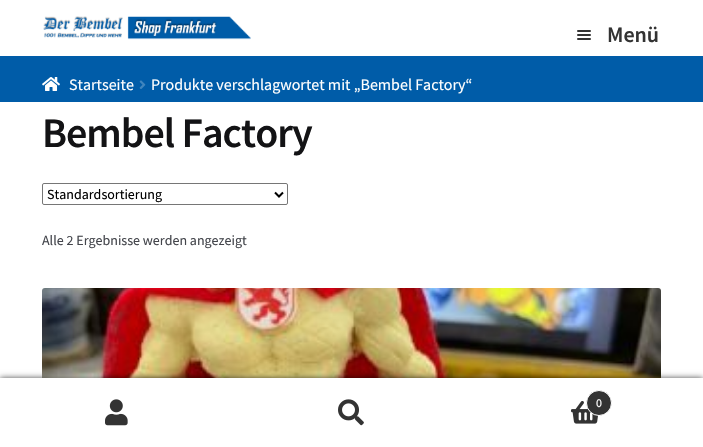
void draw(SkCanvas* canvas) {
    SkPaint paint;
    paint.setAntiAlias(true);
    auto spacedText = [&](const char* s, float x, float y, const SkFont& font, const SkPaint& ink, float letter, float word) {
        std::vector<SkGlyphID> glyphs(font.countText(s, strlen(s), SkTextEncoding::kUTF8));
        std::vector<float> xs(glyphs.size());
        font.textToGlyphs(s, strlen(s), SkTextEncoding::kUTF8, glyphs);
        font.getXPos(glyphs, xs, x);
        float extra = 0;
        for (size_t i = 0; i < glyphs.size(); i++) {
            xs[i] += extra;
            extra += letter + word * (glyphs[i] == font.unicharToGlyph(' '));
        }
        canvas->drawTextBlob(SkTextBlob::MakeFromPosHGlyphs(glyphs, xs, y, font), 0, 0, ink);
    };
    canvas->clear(0xFFFFFFFF);
    canvas->drawImageRect(SkImages::DeferredFromEncodedData(SkData::MakeFromFileName("img1.png")), SkRect::MakeXYWH(43, 16, 208, 24), SkSamplingOptions());
    paint.setColor(0xFF333333);
    canvas->drawRoundRect(SkRect::MakeXYWH(577, 30, 14, 2), 1, 1, paint);
    canvas->drawRoundRect(SkRect::MakeXYWH(577, 34, 14, 2), 1, 1, paint);
    SkFont font1(fontMgr->matchFamilyStyle("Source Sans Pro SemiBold", SkFontStyle(600, SkFontStyle::kNormal_Width, SkFontStyle::kUpright_Slant)), 22);
    font1.setSubpixel(true);
    canvas->drawString("Menü", 607, 42, font1, paint);
    canvas->drawRoundRect(SkRect::MakeXYWH(577, 38, 14, 2), 1, 1, paint);
    paint.setColor(0xFF005CA8);
    canvas->drawRect(SkRect::MakeXYWH(0, 56, 703, 46), paint);
    canvas->drawImageRect(SkImages::DeferredFromEncodedData(SkData::MakeFromFileName("img2.png")), SkRect::MakeXYWH(42, 77, 18, 14), SkSamplingOptions());
    SkFont font2(fontMgr->matchFamilyStyle("Source Sans Pro", SkFontStyle::Normal()), 16);
    font2.setSubpixel(true);
    paint.setColor(0xFFFFFFFF);
    canvas->drawString("Startseite", 69, 90, font2, paint);
    canvas->drawImageRect(SkImages::DeferredFromEncodedData(SkData::MakeFromFileName("img3.png")), SkRect::MakeXYWH(139, 80, 7, 9), SkSamplingOptions());
    canvas->drawString("Produkte verschlagwortet mit „Bembel Factory“", 151, 90, font2, paint);
    SkFont font3(fontMgr->matchFamilyStyle("Source Sans Pro SemiBold", SkFontStyle(600, SkFontStyle::kNormal_Width, SkFontStyle::kUpright_Slant)), 42);
    font3.setSubpixel(true);
    paint.setColor(0xFF131315);
    spacedText("Bembel Factory", 42, 147, font3, paint, -1, 0);
    paint.setStyle(SkPaint::kStroke_Style);
    paint.setStrokeWidth(1);
    paint.setColor(0xFF767676);
    canvas->drawRoundRect(SkRect::MakeXYWH(42.5f, 183.5f, 245, 21), 1.5f, 1.5f, paint);
    paint.setStrokeWidth(2);
    paint.setColor(0xFF000000);
    canvas->drawPath(SkPathBuilder().moveTo(275, 192.5f).lineTo(279, 196.5f).lineTo(283, 192.5f).detach(), paint);
    SkFont font4(fontMgr->matchFamilyStyle("Source Sans Pro", SkFontStyle::Normal()), 14);
    font4.setSubpixel(true);
    paint.setStyle(SkPaint::kFill_Style);
    canvas->drawString("Standardsortierung", 47, 199, font4, paint);
    paint.setColor(0xFF43454B);
    canvas->drawString("Alle 2 Ergebnisse werden angezeigt", 42, 245, font4, paint);
    canvas->drawImageRect(SkImages::DeferredFromEncodedData(SkData::MakeFromFileName("img4.png")), SkRect::MakeXYWH(42, 288, 619, 90), SkSamplingOptions());
    paint.setColor(0xB3000000);
    paint.setMaskFilter(SkMaskFilter::MakeBlur(kNormal_SkBlurStyle, 3));
    canvas->drawRect(SkRect::MakeXYWH(0, 378, 703, 69), paint);
    paint.setMaskFilter(nullptr);
    paint.setColor(0xFFFFFFFF);
    canvas->drawRect(SkRect::MakeXYWH(0, 378, 703, 1), paint);
    canvas->drawRect(SkRect::MakeXYWH(0, 379, 703, 68), paint);
    canvas->drawImageRect(SkImages::DeferredFromEncodedData(SkData::MakeFromFileName("img5.png")), SkRect::MakeXYWH(105, 399, 23, 27), SkSamplingOptions());
    canvas->drawImageRect(SkImages::DeferredFromEncodedData(SkData::MakeFromFileName("img6.png")), SkRect::MakeXYWH(338, 399, 26, 27), SkSamplingOptions());
    canvas->drawImageRect(SkImages::DeferredFromEncodedData(SkData::MakeFromFileName("img7.png")), SkRect::MakeXYWH(571, 401, 28, 23), SkSamplingOptions());
    paint.setColor(0xFF333333);
    canvas->drawCircle(599, 403, 12.5f, paint);
    paint.setStyle(SkPaint::kStroke_Style);
    paint.setStrokeWidth(1);
    paint.setColor(0xFFFFFFFF);
    canvas->drawCircle(599, 403, 12.5f, paint);
    SkFont font5(fontMgr->matchFamilyStyle("Source Sans Pro", SkFontStyle::Normal()), 12);
    font5.setSubpixel(true);
    paint.setStyle(SkPaint::kFill_Style);
    canvas->drawString("0", 596, 407, font5, paint);
}
